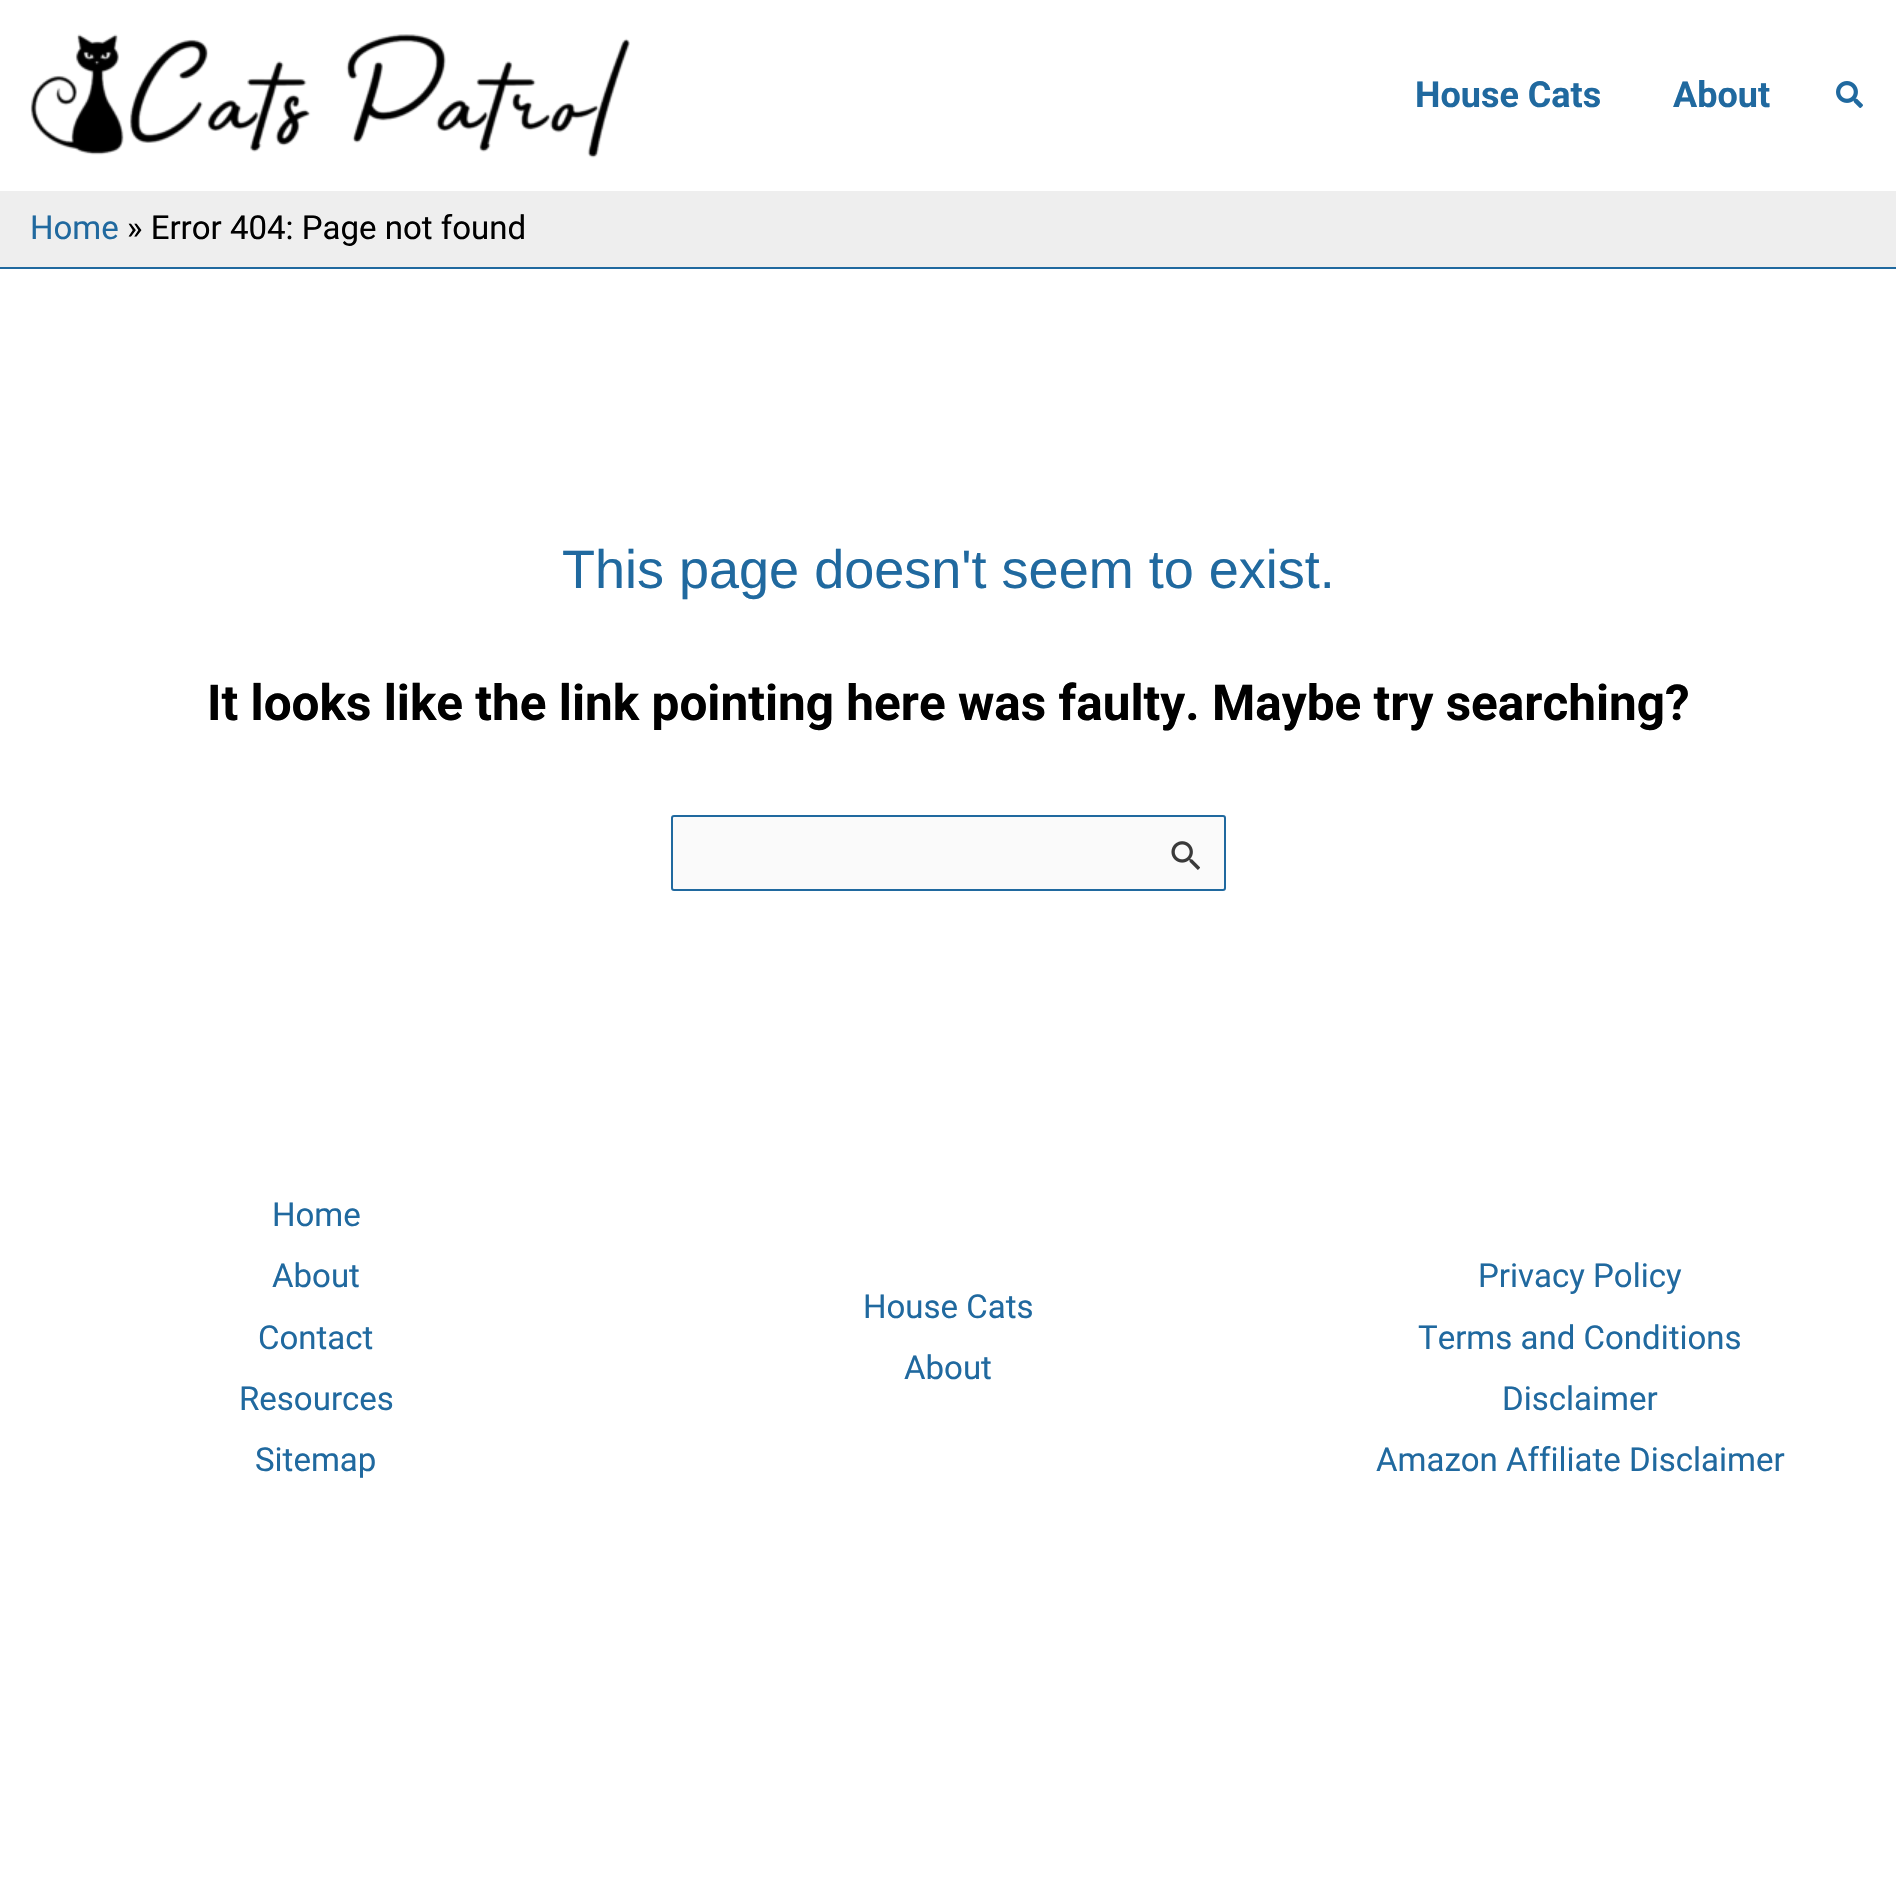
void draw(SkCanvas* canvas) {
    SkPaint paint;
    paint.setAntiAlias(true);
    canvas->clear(0xFFFFFFFF);
    canvas->drawImageRect(SkImages::DeferredFromEncodedData(SkData::MakeFromFileName("img1.png")), SkRect::MakeXYWH(30, 34, 600, 124), SkSamplingOptions());
    SkFont font1(fontMgr->matchFamilyStyle("Roboto", SkFontStyle::Bold()), 36);
    font1.setSubpixel(true);
    paint.setColor(0xFF20699F);
    canvas->drawString("House Cats", 1415, 107, font1, paint);
    canvas->drawString("About", 1673, 107, font1, paint);
    canvas->drawImageRect(SkImages::DeferredFromEncodedData(SkData::MakeFromFileName("img2.png")), SkRect::MakeXYWH(1836, 81, 27, 27), SkSamplingOptions());
    paint.setColor(0xFFEEEEEE);
    canvas->drawRect(SkRect::MakeXYWH(0, 191, 1896, 76), paint);
    paint.setColor(0xFF20699F);
    canvas->drawRect(SkRect::MakeXYWH(0, 267, 1896, 2), paint);
    SkFont font2(fontMgr->matchFamilyStyle("Roboto", SkFontStyle::Normal()), 33);
    font2.setSubpixel(true);
    canvas->drawString("Home", 30, 239, font2, paint);
    paint.setColor(0xFF000000);
    canvas->drawString("» Error 404: Page not found", 127, 239, font2, paint);
    SkFont font3(fontMgr->matchFamilyStyle("Liberation Sans", SkFontStyle::Normal()), 54);
    font3.setSubpixel(true);
    paint.setColor(0xFF20699F);
    canvas->drawString("This page doesn't seem to exist.", 562, 588, font3, paint);
    SkFont font4(fontMgr->matchFamilyStyle("Roboto", SkFontStyle::Bold()), 49.5f);
    font4.setSubpixel(true);
    paint.setColor(0xFF000000);
    canvas->drawString("It looks like the link pointing here was faulty. Maybe try searching?", 207, 720, font4, paint);
    paint.setColor(0xFFFAFAFA);
    canvas->drawRoundRect(SkRect::MakeXYWH(672, 816, 553, 74), 2, 2, paint);
    paint.setStyle(SkPaint::kStroke_Style);
    paint.setStrokeWidth(2);
    paint.setColor(0xFF20699F);
    canvas->drawRoundRect(SkRect::MakeXYWH(672, 816, 553, 74), 2, 2, paint);
    canvas->drawImageRect(SkImages::DeferredFromEncodedData(SkData::MakeFromFileName("img3.png")), SkRect::MakeXYWH(1171, 841, 29, 29), SkSamplingOptions());
    paint.setStyle(SkPaint::kFill_Style);
    canvas->drawString("Home", 272, 1226, font2, paint);
    canvas->drawString("About", 272, 1287, font2, paint);
    canvas->drawString("Contact", 258, 1349, font2, paint);
    canvas->drawString("Resources", 239, 1410, font2, paint);
    canvas->drawString("Sitemap", 255, 1471, font2, paint);
    canvas->drawString("House Cats", 863, 1318, font2, paint);
    canvas->drawString("About", 904, 1379, font2, paint);
    canvas->drawString("Privacy Policy", 1478, 1287, font2, paint);
    canvas->drawString("Terms and Conditions", 1418, 1349, font2, paint);
    canvas->drawString("Disclaimer", 1502, 1410, font2, paint);
    canvas->drawString("Amazon Affiliate Disclaimer", 1376, 1471, font2, paint);
}
